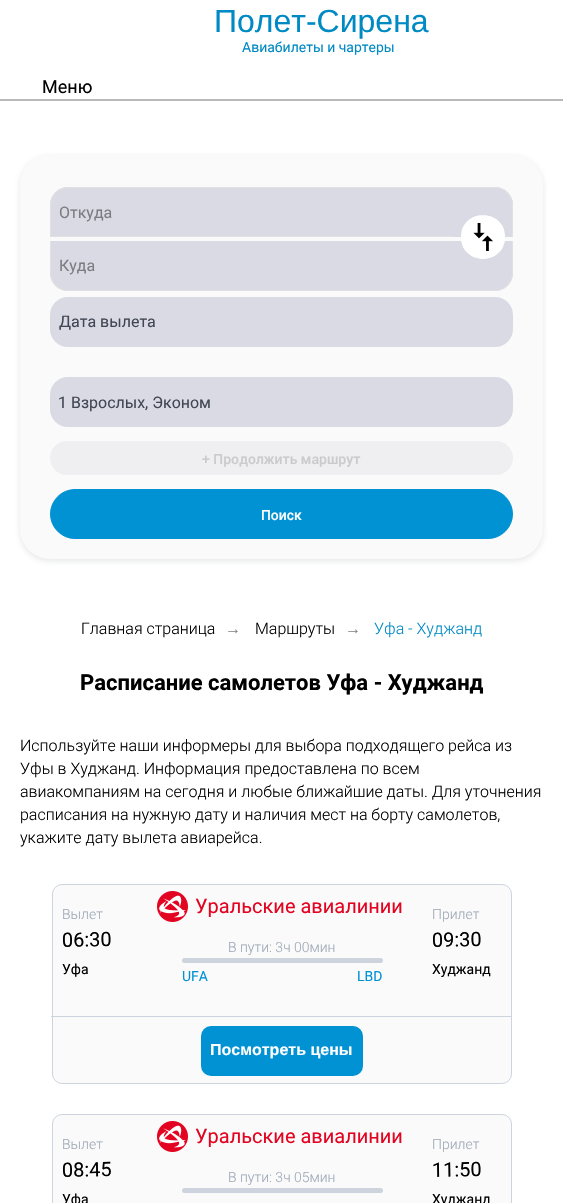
void draw(SkCanvas* canvas) {
    SkPaint paint;
    paint.setAntiAlias(true);
    canvas->clear(0xFFFFFFFF);
    SkFont font1(fontMgr->matchFamilyStyle("Liberation Sans", SkFontStyle::Normal()), 32);
    font1.setSubpixel(true);
    paint.setColor(0xFF008AC4);
    canvas->drawString("Полет-Сирена", 214, 32, font1, paint);
    SkFont font2(fontMgr->matchFamilyStyle("Roboto", SkFontStyle::Normal()), 14);
    font2.setSubpixel(true);
    canvas->drawString("Авиабилеты и чартеры", 242, 52, font2, paint);
    SkFont font3(fontMgr->matchFamilyStyle("Roboto", SkFontStyle::Normal()), 18);
    font3.setSubpixel(true);
    paint.setColor(0xFF000000);
    canvas->drawString("Меню", 42, 93, font3, paint);
    paint.setColor(0xFFBAB8B8);
    canvas->drawRect(SkRect::MakeXYWH(0, 99, 563, 2), paint);
    paint.setColor(0x337F8083);
    paint.setMaskFilter(SkMaskFilter::MakeBlur(kNormal_SkBlurStyle, 3));
    canvas->drawRoundRect(SkRect::MakeXYWH(20, 157, 523, 404), 30, 30, paint);
    paint.setMaskFilter(nullptr);
    paint.setColor(0xFFFAFAFA);
    canvas->drawRoundRect(SkRect::MakeXYWH(20, 155, 523, 404), 30, 30, paint);
    paint.setColor(0xFFD9DAE4);
    canvas->drawPath(SkPathBuilder().moveTo(68, 187).lineTo(495, 187).cubicTo(505, 187, 513, 195, 513, 205).lineTo(513, 237).lineTo(50, 237).lineTo(50, 205).cubicTo(50, 195, 58, 187, 68, 187).close().detach(), paint);
    paint.setColor(0xFFE1E1E1);
    canvas->drawPath(SkPathBuilder(SkPathFillType::kEvenOdd).moveTo(68, 187).lineTo(495, 187).cubicTo(505, 187, 513, 195, 513, 205).lineTo(513, 237).lineTo(50, 237).lineTo(50, 205).cubicTo(50, 195, 58, 187, 68, 187).close().moveTo(68, 188).lineTo(495, 188).cubicTo(504, 188, 512, 196, 512, 205).lineTo(512, 237).lineTo(51, 237).lineTo(51, 205).cubicTo(51, 196, 59, 188, 68, 188).close().detach(), paint);
    SkFont font4(fontMgr->matchFamilyStyle("Roboto", SkFontStyle::Normal()), 16);
    font4.setSubpixel(true);
    paint.setColor(0xFF7C7D82);
    canvas->drawString("Откуда", 59, 218, font4, paint);
    paint.setColor(0xFFE1E1E1);
    canvas->drawRect(SkRect::MakeXYWH(50, 236, 403, 1), paint);
    paint.setColor(0xFFD9DAE4);
    canvas->drawPath(SkPathBuilder().moveTo(50, 241).lineTo(513, 241).lineTo(513, 273).cubicTo(513, 283, 505, 291, 495, 291).lineTo(68, 291).cubicTo(58, 291, 50, 283, 50, 273).close().detach(), paint);
    paint.setColor(0xFFE1E1E1);
    canvas->drawPath(SkPathBuilder(SkPathFillType::kEvenOdd).moveTo(50, 241).lineTo(513, 241).lineTo(513, 273).cubicTo(513, 283, 505, 291, 495, 291).lineTo(68, 291).cubicTo(58, 291, 50, 283, 50, 273).close().moveTo(51, 241).lineTo(512, 241).lineTo(512, 273).cubicTo(512, 282, 504, 290, 495, 290).lineTo(68, 290).cubicTo(59, 290, 51, 282, 51, 273).close().detach(), paint);
    paint.setColor(0xFFFFFFFF);
    canvas->drawPath(SkPathBuilder().moveTo(505, 237).cubicTo(505, 266, 461, 266, 461, 237).cubicTo(461, 208, 505, 208, 505, 237).close().detach(), paint);
    paint.setStyle(SkPaint::kStroke_Style);
    paint.setStrokeWidth(2);
    paint.setPathEffect(SkDashPathEffect::Make({{6, 4}}, 0));
    canvas->drawPath(SkPathBuilder().moveTo(504, 237).cubicTo(504, 264.5f, 462, 264.5f, 462, 237).cubicTo(462, 209.5f, 504, 209.5f, 504, 237).close().detach(), paint);
    paint.setPathEffect(nullptr);
    canvas->drawImageRect(SkImages::DeferredFromEncodedData(SkData::MakeFromFileName("img1.png")), SkRect::MakeXYWH(473, 223, 20, 28), SkSamplingOptions());
    paint.setStyle(SkPaint::kFill_Style);
    paint.setColor(0xFF7C7D82);
    canvas->drawString("Куда", 59, 271, font4, paint);
    paint.setColor(0xFFD9DAE4);
    canvas->drawRoundRect(SkRect::MakeXYWH(50, 297, 463, 50), 18, 18, paint);
    paint.setColor(0xFF424753);
    canvas->drawString("Дата вылета", 59, 327, font4, paint);
    paint.setColor(0xFFD9DAE4);
    canvas->drawRoundRect(SkRect::MakeXYWH(50, 377, 463, 50), 18, 18, paint);
    paint.setColor(0xFF424753);
    canvas->drawString("1 Взрослых, Эконом", 58, 408, font4, paint);
    paint.setColor(0xFFEFEFF2);
    canvas->drawRoundRect(SkRect::MakeXYWH(50, 441, 463, 34), 17, 17, paint);
    SkFont font5(fontMgr->matchFamilyStyle("Roboto", SkFontStyle(500, SkFontStyle::kNormal_Width, SkFontStyle::kUpright_Slant)), 14);
    font5.setSubpixel(true);
    paint.setColor(0xFFCBCBCB);
    canvas->drawString("+ Продолжить маршрут", 202, 464, font5, paint);
    paint.setColor(0xFF0192D3);
    canvas->drawRoundRect(SkRect::MakeXYWH(50.5f, 489.5f, 462, 49), 24.5f, 24.5f, paint);
    paint.setStyle(SkPaint::kStroke_Style);
    paint.setStrokeWidth(1);
    canvas->drawRoundRect(SkRect::MakeXYWH(50.5f, 489.5f, 462, 49), 24.5f, 24.5f, paint);
    paint.setStyle(SkPaint::kFill_Style);
    paint.setColor(0xFFFFFFFF);
    canvas->drawString("Поиск", 261, 520, font5, paint);
    SkFont font6(fontMgr->matchFamilyStyle("Roboto", SkFontStyle(300, SkFontStyle::kNormal_Width, SkFontStyle::kUpright_Slant)), 16);
    font6.setSubpixel(true);
    paint.setColor(0xFF000000);
    canvas->drawString("Главная страница", 81, 634, font6, paint);
    SkFont font7(fontMgr->matchFamilyStyle("Liberation Sans", SkFontStyle::Normal()), 16);
    font7.setSubpixel(true);
    paint.setColor(0xFF858585);
    canvas->drawString("→", 225, 634, font7, paint);
    paint.setColor(0xFF000000);
    canvas->drawString("Маршруты", 255, 634, font6, paint);
    paint.setColor(0xFF858585);
    canvas->drawString("→", 345, 634, font7, paint);
    paint.setColor(0xFF008AC4);
    canvas->drawString("Уфа - Худжанд", 374, 634, font6, paint);
    SkFont font8(fontMgr->matchFamilyStyle("Roboto", SkFontStyle::Bold()), 22);
    font8.setSubpixel(true);
    paint.setColor(0xFF000000);
    canvas->drawString("Расписание самолетов Уфа - Худжанд", 80, 690, font8, paint);
    canvas->drawString("Используйте наши информеры для выбора подходящего рейса из", 20, 751, font6, paint);
    canvas->drawString("Уфы в Худжанд. Информация предоставлена по всем", 20, 774, font6, paint);
    canvas->drawString("авиакомпаниям на сегодня и любые ближайшие даты. Для уточнения", 20, 797, font6, paint);
    canvas->drawString("расписания на нужную дату и наличия мест на борту самолетов,", 20, 820, font6, paint);
    canvas->drawString("укажите дату вылета авиарейса.", 20, 843, font6, paint);
    paint.setColor(0xFFFAFAFA);
    canvas->drawRoundRect(SkRect::MakeXYWH(52.5f, 884.5f, 459, 199), 9.5f, 9.5f, paint);
    paint.setStyle(SkPaint::kStroke_Style);
    paint.setColor(0xFFCDD4DE);
    canvas->drawRoundRect(SkRect::MakeXYWH(52.5f, 884.5f, 459, 199), 9.5f, 9.5f, paint);
    SkFont font9(fontMgr->matchFamilyStyle("Roboto", SkFontStyle(300, SkFontStyle::kNormal_Width, SkFontStyle::kUpright_Slant)), 14);
    font9.setSubpixel(true);
    paint.setStyle(SkPaint::kFill_Style);
    paint.setColor(0xFF9EA9B7);
    canvas->drawString("Вылет", 62, 919, font9, paint);
    canvas->drawImageRect(SkImages::DeferredFromEncodedData(SkData::MakeFromFileName("img2.png")), SkRect::MakeXYWH(157, 891, 31, 31), SkSamplingOptions());
    SkFont font10(fontMgr->matchFamilyStyle("Roboto", SkFontStyle::Normal()), 20);
    font10.setSubpixel(true);
    paint.setColor(0xFFE30421);
    canvas->drawString("Уральские авиалинии", 195, 913, font10, paint);
    paint.setColor(0xFF9EA9B7);
    canvas->drawString("Прилет", 432, 919, font9, paint);
    paint.setColor(0xFF000000);
    canvas->save();
    canvas->rotate(-1, 62, 947);
    canvas->drawString("06:30", 62, 947, font10, paint);
    canvas->restore();
    paint.setColor(0xFF9EA9B7);
    canvas->drawString("В пути: 3ч 00мин", 228, 952, font9, paint);
    paint.setColor(0xFF000000);
    canvas->save();
    canvas->rotate(-1, 432, 947);
    canvas->drawString("09:30", 432, 947, font10, paint);
    canvas->restore();
    paint.setColor(0xFFCDD4DE);
    canvas->drawRoundRect(SkRect::MakeXYWH(182, 958, 201, 5), 2.5f, 2.5f, paint);
    paint.setColor(0xFF000000);
    canvas->drawString("Уфа", 62, 974, font2, paint);
    paint.setColor(0xFF0192D3);
    canvas->drawString("UFA", 182, 981, font2, paint);
    canvas->drawString("LBD", 357, 981, font2, paint);
    paint.setColor(0xFF000000);
    canvas->drawString("Худжанд", 432, 974, font2, paint);
    paint.setColor(0xFFCDD4DE);
    canvas->drawRect(SkRect::MakeXYWH(51, 1016, 460, 1), paint);
    paint.setColor(0xFF0192D3);
    canvas->drawRoundRect(SkRect::MakeXYWH(201, 1026, 162, 50), 10, 10, paint);
    SkFont font11(fontMgr->matchFamilyStyle("Liberation Sans", SkFontStyle::Bold()), 16);
    font11.setSubpixel(true);
    paint.setColor(0xFFFFFFFF);
    canvas->drawString("Посмотреть цены", 210, 1055, font11, paint);
    paint.setColor(0xFFFAFAFA);
    canvas->drawRoundRect(SkRect::MakeXYWH(52.5f, 1114.5f, 459, 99), 9.5f, 9.5f, paint);
    paint.setStyle(SkPaint::kStroke_Style);
    paint.setColor(0xFFCDD4DE);
    canvas->drawRoundRect(SkRect::MakeXYWH(52.5f, 1114.5f, 459, 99), 9.5f, 9.5f, paint);
    paint.setStyle(SkPaint::kFill_Style);
    paint.setColor(0xFF9EA9B7);
    canvas->drawString("Вылет", 62, 1149, font9, paint);
    canvas->drawImageRect(SkImages::DeferredFromEncodedData(SkData::MakeFromFileName("img2.png")), SkRect::MakeXYWH(157, 1121, 31, 31), SkSamplingOptions());
    paint.setColor(0xFFE30421);
    canvas->drawString("Уральские авиалинии", 195, 1143, font10, paint);
    paint.setColor(0xFF9EA9B7);
    canvas->drawString("Прилет", 432, 1149, font9, paint);
    paint.setColor(0xFF000000);
    canvas->save();
    canvas->rotate(-1, 62, 1177);
    canvas->drawString("08:45", 62, 1177, font10, paint);
    canvas->restore();
    paint.setColor(0xFF9EA9B7);
    canvas->drawString("В пути: 3ч 05мин", 228, 1182, font9, paint);
    paint.setColor(0xFF000000);
    canvas->save();
    canvas->rotate(-1, 432, 1177);
    canvas->drawString("11:50", 432, 1177, font10, paint);
    canvas->restore();
    paint.setColor(0xFFCDD4DE);
    canvas->drawRoundRect(SkRect::MakeXYWH(182, 1188, 201, 5), 2.5f, 2.5f, paint);
    paint.setColor(0xFF000000);
    canvas->drawString("Уфа", 62, 1204, font2, paint);
    canvas->drawString("Худжанд", 432, 1204, font2, paint);
}
